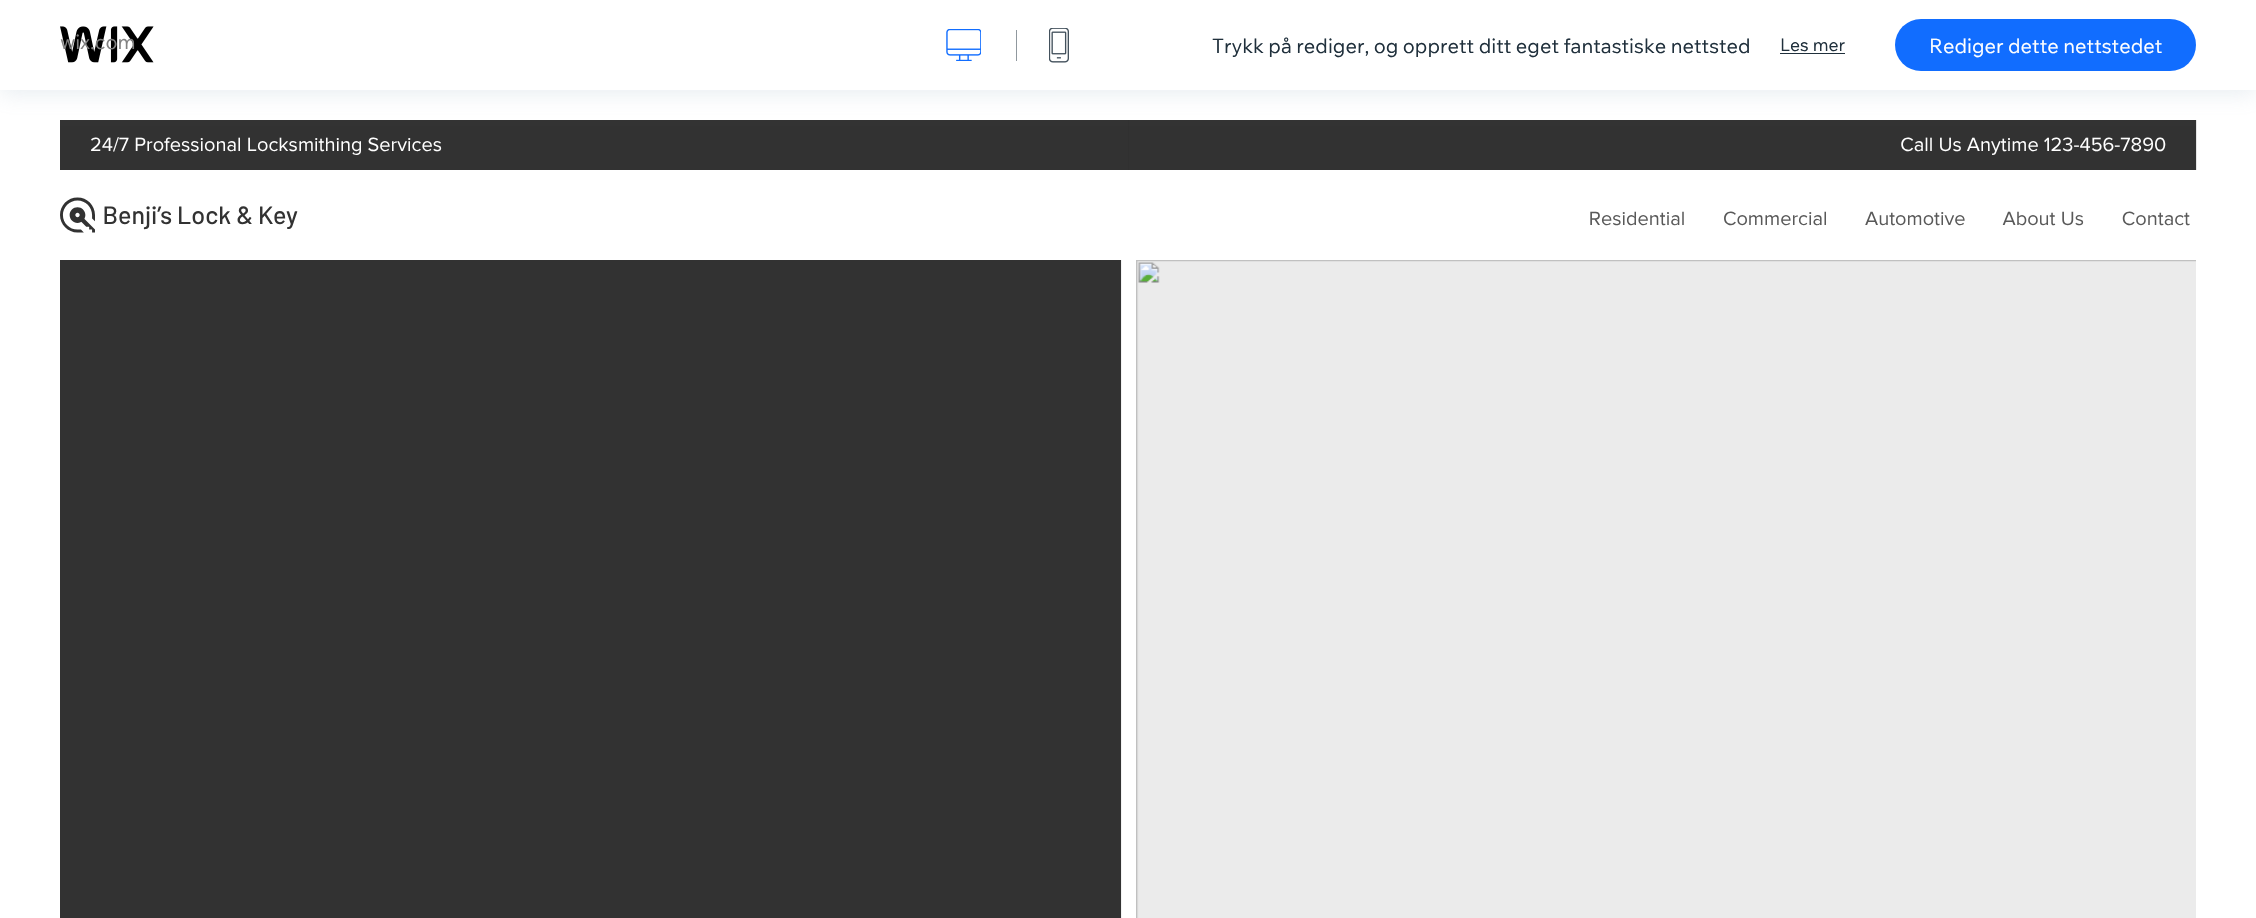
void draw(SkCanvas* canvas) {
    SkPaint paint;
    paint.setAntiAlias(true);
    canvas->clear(0xFFFFFFFF);
    canvas->drawImageRect(SkImages::DeferredFromEncodedData(SkData::MakeFromFileName("img4.png")), SkRect::MakeXYWH(0, 90, 2256, 828), SkSamplingOptions());
    paint.setColor(0x3381A2B6);
    paint.setMaskFilter(SkMaskFilter::MakeBlur(kNormal_SkBlurStyle, 11));
    canvas->drawRect(SkRect::MakeXYWH(0, 3, 2256, 90), paint);
    paint.setMaskFilter(nullptr);
    paint.setColor(0xFFFFFFFF);
    canvas->drawRect(SkRect::MakeXYWH(0, 0, 2256, 90), paint);
    canvas->drawImageRect(SkImages::DeferredFromEncodedData(SkData::MakeFromFileName("img1.png")), SkRect::MakeXYWH(60, 26, 94, 37), SkSamplingOptions());
    SkFont font1(fontMgr->matchFamilyStyle("Wix Madefor Text", SkFontStyle::Normal()), 20);
    font1.setSubpixel(true);
    paint.setColor(0xFF818181);
    canvas->drawString("wix.com", 60, 49, font1, paint);
    canvas->drawImageRect(SkImages::DeferredFromEncodedData(SkData::MakeFromFileName("img2.png")), SkRect::MakeXYWH(946, 29, 35, 32), SkSamplingOptions());
    paint.setColor(0xFF90989E);
    canvas->drawRect(SkRect::MakeXYWH(1016, 30, 1, 31), paint);
    canvas->drawImageRect(SkImages::DeferredFromEncodedData(SkData::MakeFromFileName("img3.png")), SkRect::MakeXYWH(1049, 28, 20, 35), SkSamplingOptions());
    paint.setColor(0xFF20303C);
    canvas->drawString("Trykk på rediger, og opprett ditt eget fantastiske nettsted", 1212, 53, font1, paint);
    SkFont font2(fontMgr->matchFamilyStyle("Wix Madefor Text", SkFontStyle::Normal()), 17.5f);
    font2.setSubpixel(true);
    canvas->drawString("Les mer", 1780, 51, font2, paint);
    canvas->drawRect(SkRect::MakeXYWH(1780, 53, 65, 1), paint);
    paint.setColor(0xFF116DFF);
    canvas->drawRoundRect(SkRect::MakeXYWH(1895, 19, 301, 52), 26, 26, paint);
    paint.setColor(0xFFFFFFFF);
    canvas->drawString("Rediger dette nettstedet", 1929, 53, font1, paint);
}
